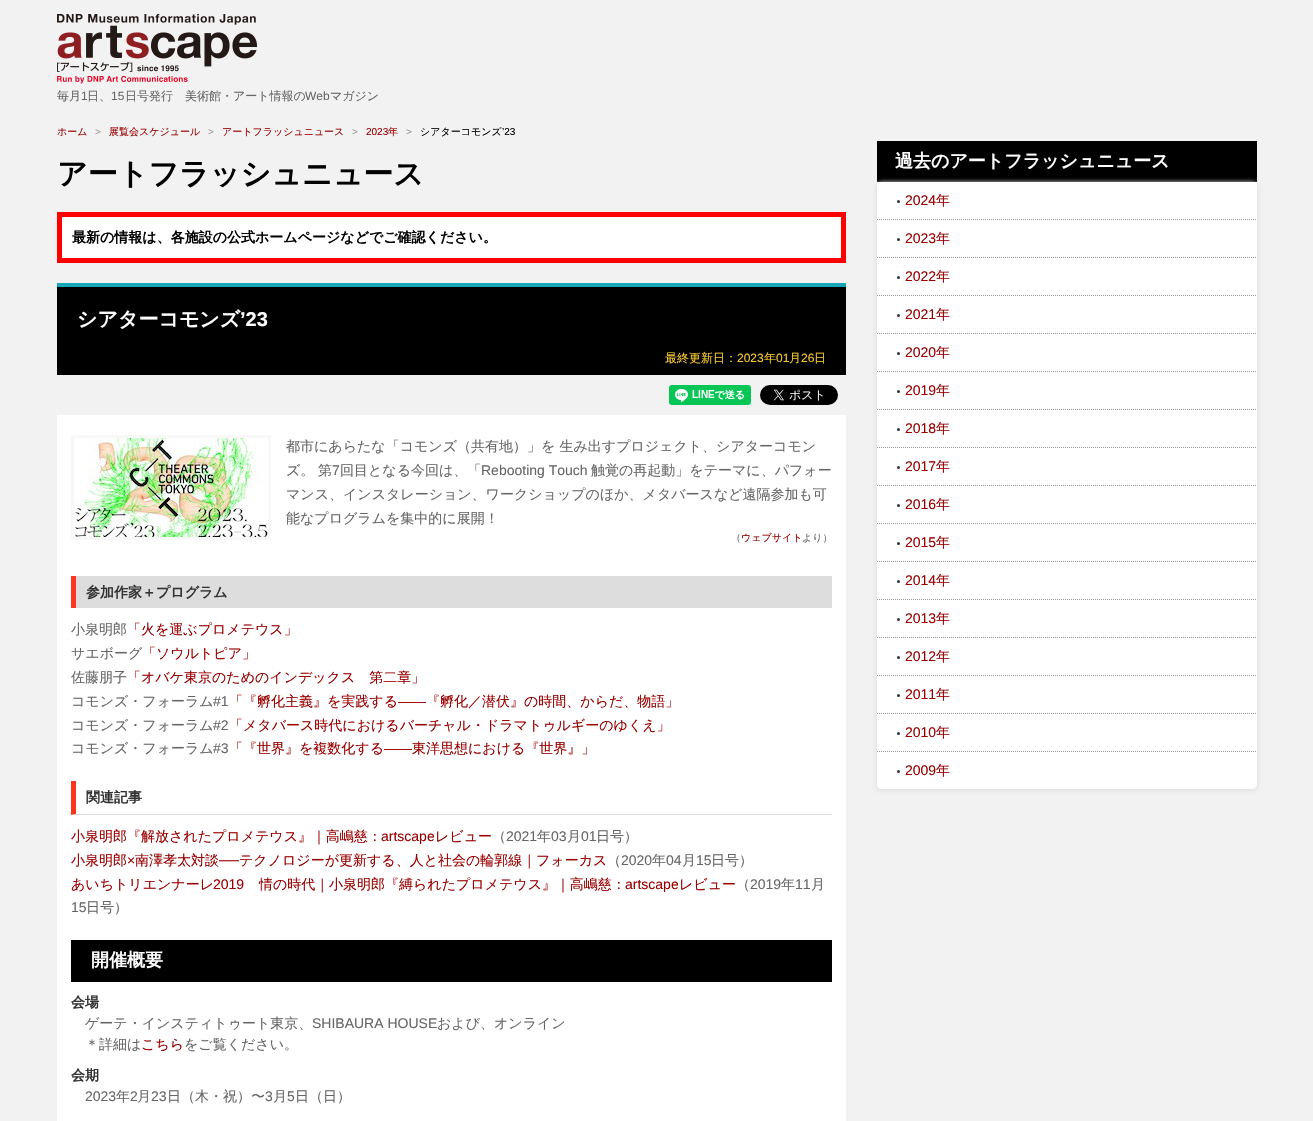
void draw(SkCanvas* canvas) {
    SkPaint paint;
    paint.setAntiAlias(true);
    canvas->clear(0xFFF2F2F2);
    canvas->drawImageRect(SkImages::DeferredFromEncodedData(SkData::MakeFromFileName("img1.png")), SkRect::MakeXYWH(57, 14, 200, 70), SkSamplingOptions());
    SkFont font1(fontMgr->matchFamilyStyle("WenQuanYi Zen Hei", SkFontStyle(500, SkFontStyle::kNormal_Width, SkFontStyle::kUpright_Slant)), 12);
    font1.setSubpixel(true);
    paint.setColor(0xFF666666);
    canvas->drawString("毎月", 57, 100, font1, paint);
    SkFont font2(fontMgr->matchFamilyStyle("Liberation Sans", SkFontStyle::Normal()), 12);
    font2.setSubpixel(true);
    canvas->drawString("1", 81, 100, font2, paint);
    canvas->drawString("日、", 87, 100, font1, paint);
    canvas->drawString("15", 111, 100, font2, paint);
    canvas->drawString("日号発行　美術館・アート情報の", 125, 100, font1, paint);
    canvas->drawString("Web", 305, 100, font2, paint);
    canvas->drawString("マガジン", 330, 100, font1, paint);
    SkFont font3(fontMgr->matchFamilyStyle("WenQuanYi Zen Hei", SkFontStyle(500, SkFontStyle::kNormal_Width, SkFontStyle::kUpright_Slant)), 10);
    font3.setSubpixel(true);
    paint.setColor(0xFF990000);
    canvas->drawString("ホーム", 57, 135, font3, paint);
    SkFont font4(fontMgr->matchFamilyStyle("Liberation Sans", SkFontStyle::Normal()), 10);
    font4.setSubpixel(true);
    paint.setColor(0xFF999999);
    canvas->drawString(">", 95, 135, font4, paint);
    paint.setColor(0xFF990000);
    canvas->drawString("展覧会スケジュール", 109, 135, font3, paint);
    paint.setColor(0xFF999999);
    canvas->drawString(">", 208, 135, font4, paint);
    paint.setColor(0xFF990000);
    canvas->drawString("アートフラッシュニュース", 222, 135, font3, paint);
    paint.setColor(0xFF999999);
    canvas->drawString(">", 352, 135, font4, paint);
    paint.setColor(0xFF990000);
    canvas->drawString("2023", 366, 135, font4, paint);
    canvas->drawString("年", 388, 135, font3, paint);
    paint.setColor(0xFF999999);
    canvas->drawString(">", 406, 135, font4, paint);
    paint.setColor(0xFF000000);
    canvas->drawString("シアターコモンズ", 420, 135, font3, paint);
    canvas->drawString("’23", 502, 135, font4, paint);
    SkFont font5(fontMgr->matchFamilyStyle("WenQuanYi Zen Hei", SkFontStyle::Bold()), 30);
    font5.setSubpixel(true);
    canvas->drawString("アートフラッシュニュース", 57, 184, font5, paint);
    paint.setColor(0xFFFFFFFF);
    canvas->drawRect(SkRect::MakeXYWH(59.5f, 214.5f, 784, 46), paint);
    paint.setStyle(SkPaint::kStroke_Style);
    paint.setStrokeWidth(5);
    paint.setColor(0xFFFF0000);
    canvas->drawRect(SkRect::MakeXYWH(59.5f, 214.5f, 784, 46), paint);
    SkFont font6(fontMgr->matchFamilyStyle("WenQuanYi Zen Hei", SkFontStyle::Bold()), 14);
    font6.setSubpixel(true);
    paint.setStyle(SkPaint::kFill_Style);
    paint.setColor(0xFF000000);
    canvas->drawString("最新の情報は、各施設の公式ホームページなどでご確認ください。", 72, 242, font6, paint);
    canvas->drawRect(SkRect::MakeXYWH(57, 287, 789, 88), paint);
    paint.setColor(0xFF16A6B6);
    canvas->drawRect(SkRect::MakeXYWH(57, 283, 789, 4), paint);
    SkFont font7(fontMgr->matchFamilyStyle("WenQuanYi Zen Hei", SkFontStyle::Bold()), 20);
    font7.setSubpixel(true);
    paint.setColor(0xFFFFFFFF);
    canvas->drawString("シアターコモンズ", 77, 326, font7, paint);
    SkFont font8(fontMgr->matchFamilyStyle("Liberation Sans", SkFontStyle::Bold()), 20);
    font8.setSubpixel(true);
    canvas->drawString("’23", 240, 326, font8, paint);
    paint.setColor(0xFFF9C930);
    canvas->drawString("最終更新日：", 665, 362, font1, paint);
    canvas->drawString("2023", 737, 362, font2, paint);
    canvas->drawString("年", 764, 362, font1, paint);
    canvas->drawString("01", 776, 362, font2, paint);
    canvas->drawString("月", 789, 362, font1, paint);
    canvas->drawString("26", 801, 362, font2, paint);
    canvas->drawString("日", 814, 362, font1, paint);
    canvas->drawImageRect(SkImages::DeferredFromEncodedData(SkData::MakeFromFileName("img2.png")), SkRect::MakeXYWH(669, 385, 82, 20), SkSamplingOptions());
    canvas->drawImageRect(SkImages::DeferredFromEncodedData(SkData::MakeFromFileName("img3.png")), SkRect::MakeXYWH(760, 385, 78, 20), SkSamplingOptions());
    paint.setColor(0xFFFFFFFF);
    canvas->drawRect(SkRect::MakeXYWH(57, 415, 789, 706), paint);
    canvas->drawImageRect(SkImages::DeferredFromEncodedData(SkData::MakeFromFileName("img4.png")), SkRect::MakeXYWH(71, 435, 200, 105), SkSamplingOptions());
    SkFont font9(fontMgr->matchFamilyStyle("WenQuanYi Zen Hei", SkFontStyle(500, SkFontStyle::kNormal_Width, SkFontStyle::kUpright_Slant)), 14);
    font9.setSubpixel(true);
    paint.setColor(0xFF666666);
    canvas->drawString("都市にあらたな「コモンズ（共有地）」を 生み出すプロジェクト、シアターコモン", 286, 451, font9, paint);
    canvas->drawString("ズ。", 286, 475, font9, paint);
    canvas->drawString("第", 318, 475, font9, paint);
    SkFont font10(fontMgr->matchFamilyStyle("Liberation Sans", SkFontStyle::Normal()), 14);
    font10.setSubpixel(true);
    canvas->drawString("7", 332, 475, font10, paint);
    canvas->drawString("回目となる今回は、「", 340, 475, font9, paint);
    canvas->drawString("Rebooting Touch", 481, 475, font10, paint);
    canvas->drawString("触覚の再起動」をテーマに、パフォー", 591, 475, font9, paint);
    canvas->drawString("マンス、インスタレーション、ワークショップのほか、メタバースなど遠隔参加も可", 286, 499, font9, paint);
    canvas->drawString("能なプログラムを集中的に展開！", 286, 523, font9, paint);
    canvas->drawString("（", 731, 541, font3, paint);
    paint.setColor(0xFF990000);
    canvas->drawString("ウェブサイト", 741, 541, font3, paint);
    paint.setColor(0xFF666666);
    canvas->drawString("より）", 802, 541, font3, paint);
    paint.setColor(0xFFDDDDDD);
    canvas->drawRect(SkRect::MakeXYWH(76, 576, 756, 32), paint);
    paint.setColor(0xFFFC361D);
    canvas->drawRect(SkRect::MakeXYWH(71, 576, 5, 32), paint);
    paint.setColor(0xFF333333);
    canvas->drawString("参加作家＋プログラム", 86, 597, font6, paint);
    paint.setColor(0xFF666666);
    canvas->drawString("小泉明郎", 71, 634, font9, paint);
    paint.setColor(0xFF990000);
    canvas->drawString("「火を運ぶプロメテウス」", 127, 634, font9, paint);
    paint.setColor(0xFF666666);
    canvas->drawString("サエボーグ", 71, 658, font9, paint);
    paint.setColor(0xFF990000);
    canvas->drawString("「ソウルトピア」", 142, 658, font9, paint);
    paint.setColor(0xFF666666);
    canvas->drawString("佐藤朋子", 71, 682, font9, paint);
    paint.setColor(0xFF990000);
    canvas->drawString("「オバケ東京のためのインデックス　第二章」", 127, 682, font9, paint);
    paint.setColor(0xFF666666);
    canvas->drawString("コモンズ・フォーラム", 71, 706, font9, paint);
    canvas->drawString("#1", 213, 706, font10, paint);
    paint.setColor(0xFF990000);
    canvas->drawString("「『孵化主義』を実践する", 229, 706, font9, paint);
    canvas->drawString("——", 398, 706, font10, paint);
    canvas->drawString("『孵化／潜伏』の時間、からだ、物語」", 426, 706, font9, paint);
    paint.setColor(0xFF666666);
    canvas->drawString("コモンズ・フォーラム", 71, 730, font9, paint);
    canvas->drawString("#2", 213, 730, font10, paint);
    paint.setColor(0xFF990000);
    canvas->drawString("「メタバース時代におけるバーチャル・ドラマトゥルギーのゆくえ」", 229, 730, font9, paint);
    paint.setColor(0xFF666666);
    canvas->drawString("コモンズ・フォーラム", 71, 753, font9, paint);
    canvas->drawString("#3", 213, 753, font10, paint);
    paint.setColor(0xFF990000);
    canvas->drawString("「『世界』を複数化する", 229, 753, font9, paint);
    canvas->drawString("——", 384, 753, font10, paint);
    canvas->drawString("東洋思想における『世界』」", 412, 753, font9, paint);
    paint.setColor(0xFFDDDDDD);
    canvas->drawPath(SkPathBuilder().moveTo(832, 815).lineTo(71, 815).lineTo(76, 814).lineTo(832, 814).close().detach(), paint);
    paint.setColor(0xFFFC361D);
    canvas->drawPath(SkPathBuilder().moveTo(71, 815).lineTo(71, 781).lineTo(76, 781).lineTo(76, 814).close().detach(), paint);
    paint.setColor(0xFF333333);
    canvas->drawString("関連記事", 86, 802, font6, paint);
    paint.setColor(0xFF990000);
    canvas->drawString("小泉明郎『解放されたプロメテウス』｜高嶋慈：", 71, 841, font9, paint);
    canvas->drawString("artscape", 381, 841, font10, paint);
    canvas->drawString("レビュー", 435, 841, font9, paint);
    paint.setColor(0xFF666666);
    canvas->drawString("（", 492, 841, font9, paint);
    canvas->drawString("2021", 506, 841, font10, paint);
    canvas->drawString("年", 537, 841, font9, paint);
    canvas->drawString("03", 551, 841, font10, paint);
    canvas->drawString("月", 567, 841, font9, paint);
    canvas->drawString("01", 581, 841, font10, paint);
    canvas->drawString("日号）", 596, 841, font9, paint);
    paint.setColor(0xFF990000);
    canvas->drawString("小泉明郎", 71, 865, font9, paint);
    canvas->drawString("×", 127, 865, font10, paint);
    canvas->drawString("南澤孝太対談", 135, 865, font9, paint);
    canvas->drawString("──", 219, 865, font10, paint);
    canvas->drawString("テクノロジーが更新する、人と社会の輪郭線｜フォーカス", 239, 865, font9, paint);
    paint.setColor(0xFF666666);
    canvas->drawString("（", 607, 865, font9, paint);
    canvas->drawString("2020", 621, 865, font10, paint);
    canvas->drawString("年", 652, 865, font9, paint);
    canvas->drawString("04", 666, 865, font10, paint);
    canvas->drawString("月", 682, 865, font9, paint);
    canvas->drawString("15", 696, 865, font10, paint);
    canvas->drawString("日号）", 711, 865, font9, paint);
    paint.setColor(0xFF990000);
    canvas->drawString("あいちトリエンナーレ", 71, 889, font9, paint);
    canvas->drawString("2019", 213, 889, font10, paint);
    canvas->drawString("情の時代｜小泉明郎『縛られたプロメテウス』｜高嶋慈：", 259, 889, font9, paint);
    canvas->drawString("artscape", 625, 889, font10, paint);
    canvas->drawString("レビュー", 679, 889, font9, paint);
    paint.setColor(0xFF666666);
    canvas->drawString("（", 736, 889, font9, paint);
    canvas->drawString("2019", 750, 889, font10, paint);
    canvas->drawString("年", 781, 889, font9, paint);
    canvas->drawString("11", 795, 889, font10, paint);
    canvas->drawString("月", 811, 889, font9, paint);
    canvas->drawString("15", 71, 912, font10, paint);
    canvas->drawString("日号）", 86, 912, font9, paint);
    paint.setColor(0xFF000000);
    canvas->drawRect(SkRect::MakeXYWH(71, 940, 761, 42), paint);
    SkFont font11(fontMgr->matchFamilyStyle("WenQuanYi Zen Hei", SkFontStyle::Bold()), 18);
    font11.setSubpixel(true);
    paint.setColor(0xFFFFFFFF);
    canvas->drawString("開催概要", 91, 966, font11, paint);
    paint.setColor(0xFF333333);
    canvas->drawString("会場", 71, 1007, font6, paint);
    paint.setColor(0xFF666666);
    canvas->drawString("ゲーテ・インスティトゥート東京、", 85, 1028, font9, paint);
    canvas->drawString("SHIBAURA HOUSE", 312, 1028, font10, paint);
    canvas->drawString("および、オンライン", 437, 1028, font9, paint);
    canvas->drawString("＊詳細は", 85, 1049, font9, paint);
    paint.setColor(0xFF990000);
    canvas->drawString("こちら", 141, 1049, font9, paint);
    paint.setColor(0xFF666666);
    canvas->drawString("をご覧ください。", 184, 1049, font9, paint);
    paint.setColor(0xFF333333);
    canvas->drawString("会期", 71, 1080, font6, paint);
    paint.setColor(0xFF666666);
    canvas->drawString("2023", 85, 1101, font10, paint);
    canvas->drawString("年", 116, 1101, font9, paint);
    canvas->drawString("2", 130, 1101, font10, paint);
    canvas->drawString("月", 137, 1101, font9, paint);
    canvas->drawString("23", 151, 1101, font10, paint);
    canvas->drawString("日（木・祝）〜", 167, 1101, font9, paint);
    canvas->drawString("3", 265, 1101, font10, paint);
    canvas->drawString("月", 273, 1101, font9, paint);
    canvas->drawString("5", 287, 1101, font10, paint);
    canvas->drawString("日（日）", 295, 1101, font9, paint);
    paint.setColor(0xFF000000);
    canvas->drawRect(SkRect::MakeXYWH(877, 141, 380, 41), paint);
    paint.setColor(0xFFFFFFFF);
    canvas->drawString("過去のアートフラッシュニュース", 895, 167, font11, paint);
    paint.setColor(0xFFE0E0E0);
    paint.setMaskFilter(SkMaskFilter::MakeBlur(kNormal_SkBlurStyle, 2));
    canvas->drawRoundRect(SkRect::MakeXYWH(876, 182, 382, 609), 6, 6, paint);
    paint.setMaskFilter(nullptr);
    paint.setColor(0xFFFFFFFF);
    canvas->drawPath(SkPathBuilder().moveTo(877, 182).lineTo(1257, 182).lineTo(1257, 784).cubicTo(1257, 787, 1255, 789, 1252, 789).lineTo(882, 789).cubicTo(879, 789, 877, 787, 877, 784).close().detach(), paint);
    paint.setColor(0xFF333333);
    canvas->drawCircle(898.5f, 201.5f, 1.5f, paint);
    paint.setColor(0xFF990000);
    canvas->drawString("2024", 905, 205, font10, paint);
    canvas->drawString("年", 936, 205, font9, paint);
    paint.setStyle(SkPaint::kStroke_Style);
    paint.setStrokeWidth(1);
    paint.setColor(0xFF999999);
    paint.setPathEffect(SkDashPathEffect::Make({{1, 1}}, 0));
    canvas->drawPath(SkPathBuilder().moveTo(877, 219.5f).lineTo(1257, 219.5f).detach(), paint);
    paint.setPathEffect(nullptr);
    paint.setStyle(SkPaint::kFill_Style);
    paint.setColor(0xFF333333);
    canvas->drawCircle(898.5f, 239.5f, 1.5f, paint);
    paint.setColor(0xFF990000);
    canvas->drawString("2023", 905, 243, font10, paint);
    canvas->drawString("年", 936, 243, font9, paint);
    paint.setStyle(SkPaint::kStroke_Style);
    paint.setColor(0xFF999999);
    paint.setPathEffect(SkDashPathEffect::Make({{1, 1}}, 0));
    canvas->drawPath(SkPathBuilder().moveTo(877, 257.5f).lineTo(1257, 257.5f).detach(), paint);
    paint.setPathEffect(nullptr);
    paint.setStyle(SkPaint::kFill_Style);
    paint.setColor(0xFF333333);
    canvas->drawCircle(898.5f, 277.5f, 1.5f, paint);
    paint.setColor(0xFF990000);
    canvas->drawString("2022", 905, 281, font10, paint);
    canvas->drawString("年", 936, 281, font9, paint);
    paint.setStyle(SkPaint::kStroke_Style);
    paint.setColor(0xFF999999);
    paint.setPathEffect(SkDashPathEffect::Make({{1, 1}}, 0));
    canvas->drawPath(SkPathBuilder().moveTo(877, 295.5f).lineTo(1257, 295.5f).detach(), paint);
    paint.setPathEffect(nullptr);
    paint.setStyle(SkPaint::kFill_Style);
    paint.setColor(0xFF333333);
    canvas->drawCircle(898.5f, 315.5f, 1.5f, paint);
    paint.setColor(0xFF990000);
    canvas->drawString("2021", 905, 319, font10, paint);
    canvas->drawString("年", 936, 319, font9, paint);
    paint.setStyle(SkPaint::kStroke_Style);
    paint.setColor(0xFF999999);
    paint.setPathEffect(SkDashPathEffect::Make({{1, 1}}, 0));
    canvas->drawPath(SkPathBuilder().moveTo(877, 333.5f).lineTo(1257, 333.5f).detach(), paint);
    paint.setPathEffect(nullptr);
    paint.setStyle(SkPaint::kFill_Style);
    paint.setColor(0xFF333333);
    canvas->drawCircle(898.5f, 353.5f, 1.5f, paint);
    paint.setColor(0xFF990000);
    canvas->drawString("2020", 905, 357, font10, paint);
    canvas->drawString("年", 936, 357, font9, paint);
    paint.setStyle(SkPaint::kStroke_Style);
    paint.setColor(0xFF999999);
    paint.setPathEffect(SkDashPathEffect::Make({{1, 1}}, 0));
    canvas->drawPath(SkPathBuilder().moveTo(877, 371.5f).lineTo(1257, 371.5f).detach(), paint);
    paint.setPathEffect(nullptr);
    paint.setStyle(SkPaint::kFill_Style);
    paint.setColor(0xFF333333);
    canvas->drawCircle(898.5f, 391.5f, 1.5f, paint);
    paint.setColor(0xFF990000);
    canvas->drawString("2019", 905, 395, font10, paint);
    canvas->drawString("年", 936, 395, font9, paint);
    paint.setStyle(SkPaint::kStroke_Style);
    paint.setColor(0xFF999999);
    paint.setPathEffect(SkDashPathEffect::Make({{1, 1}}, 0));
    canvas->drawPath(SkPathBuilder().moveTo(877, 409.5f).lineTo(1257, 409.5f).detach(), paint);
    paint.setPathEffect(nullptr);
    paint.setStyle(SkPaint::kFill_Style);
    paint.setColor(0xFF333333);
    canvas->drawCircle(898.5f, 429.5f, 1.5f, paint);
    paint.setColor(0xFF990000);
    canvas->drawString("2018", 905, 433, font10, paint);
    canvas->drawString("年", 936, 433, font9, paint);
    paint.setStyle(SkPaint::kStroke_Style);
    paint.setColor(0xFF999999);
    paint.setPathEffect(SkDashPathEffect::Make({{1, 1}}, 0));
    canvas->drawPath(SkPathBuilder().moveTo(877, 447.5f).lineTo(1257, 447.5f).detach(), paint);
    paint.setPathEffect(nullptr);
    paint.setStyle(SkPaint::kFill_Style);
    paint.setColor(0xFF333333);
    canvas->drawCircle(898.5f, 467.5f, 1.5f, paint);
    paint.setColor(0xFF990000);
    canvas->drawString("2017", 905, 471, font10, paint);
    canvas->drawString("年", 936, 471, font9, paint);
    paint.setStyle(SkPaint::kStroke_Style);
    paint.setColor(0xFF999999);
    paint.setPathEffect(SkDashPathEffect::Make({{1, 1}}, 0));
    canvas->drawPath(SkPathBuilder().moveTo(877, 485.5f).lineTo(1257, 485.5f).detach(), paint);
    paint.setPathEffect(nullptr);
    paint.setStyle(SkPaint::kFill_Style);
    paint.setColor(0xFF333333);
    canvas->drawCircle(898.5f, 505.5f, 1.5f, paint);
    paint.setColor(0xFF990000);
    canvas->drawString("2016", 905, 509, font10, paint);
    canvas->drawString("年", 936, 509, font9, paint);
    paint.setStyle(SkPaint::kStroke_Style);
    paint.setColor(0xFF999999);
    paint.setPathEffect(SkDashPathEffect::Make({{1, 1}}, 0));
    canvas->drawPath(SkPathBuilder().moveTo(877, 523.5f).lineTo(1257, 523.5f).detach(), paint);
    paint.setPathEffect(nullptr);
    paint.setStyle(SkPaint::kFill_Style);
    paint.setColor(0xFF333333);
    canvas->drawCircle(898.5f, 543.5f, 1.5f, paint);
    paint.setColor(0xFF990000);
    canvas->drawString("2015", 905, 547, font10, paint);
    canvas->drawString("年", 936, 547, font9, paint);
    paint.setStyle(SkPaint::kStroke_Style);
    paint.setColor(0xFF999999);
    paint.setPathEffect(SkDashPathEffect::Make({{1, 1}}, 0));
    canvas->drawPath(SkPathBuilder().moveTo(877, 561.5f).lineTo(1257, 561.5f).detach(), paint);
    paint.setPathEffect(nullptr);
    paint.setStyle(SkPaint::kFill_Style);
    paint.setColor(0xFF333333);
    canvas->drawCircle(898.5f, 581.5f, 1.5f, paint);
    paint.setColor(0xFF990000);
    canvas->drawString("2014", 905, 585, font10, paint);
    canvas->drawString("年", 936, 585, font9, paint);
    paint.setStyle(SkPaint::kStroke_Style);
    paint.setColor(0xFF999999);
    paint.setPathEffect(SkDashPathEffect::Make({{1, 1}}, 0));
    canvas->drawPath(SkPathBuilder().moveTo(877, 599.5f).lineTo(1257, 599.5f).detach(), paint);
    paint.setPathEffect(nullptr);
    paint.setStyle(SkPaint::kFill_Style);
    paint.setColor(0xFF333333);
    canvas->drawCircle(898.5f, 619.5f, 1.5f, paint);
    paint.setColor(0xFF990000);
    canvas->drawString("2013", 905, 623, font10, paint);
    canvas->drawString("年", 936, 623, font9, paint);
    paint.setStyle(SkPaint::kStroke_Style);
    paint.setColor(0xFF999999);
    paint.setPathEffect(SkDashPathEffect::Make({{1, 1}}, 0));
    canvas->drawPath(SkPathBuilder().moveTo(877, 637.5f).lineTo(1257, 637.5f).detach(), paint);
    paint.setPathEffect(nullptr);
    paint.setStyle(SkPaint::kFill_Style);
    paint.setColor(0xFF333333);
    canvas->drawCircle(898.5f, 657.5f, 1.5f, paint);
    paint.setColor(0xFF990000);
    canvas->drawString("2012", 905, 661, font10, paint);
    canvas->drawString("年", 936, 661, font9, paint);
    paint.setStyle(SkPaint::kStroke_Style);
    paint.setColor(0xFF999999);
    paint.setPathEffect(SkDashPathEffect::Make({{1, 1}}, 0));
    canvas->drawPath(SkPathBuilder().moveTo(877, 675.5f).lineTo(1257, 675.5f).detach(), paint);
    paint.setPathEffect(nullptr);
    paint.setStyle(SkPaint::kFill_Style);
    paint.setColor(0xFF333333);
    canvas->drawCircle(898.5f, 695.5f, 1.5f, paint);
    paint.setColor(0xFF990000);
    canvas->drawString("2011", 905, 699, font10, paint);
    canvas->drawString("年", 936, 699, font9, paint);
    paint.setStyle(SkPaint::kStroke_Style);
    paint.setColor(0xFF999999);
    paint.setPathEffect(SkDashPathEffect::Make({{1, 1}}, 0));
    canvas->drawPath(SkPathBuilder().moveTo(877, 713.5f).lineTo(1257, 713.5f).detach(), paint);
    paint.setPathEffect(nullptr);
    paint.setStyle(SkPaint::kFill_Style);
    paint.setColor(0xFF333333);
    canvas->drawCircle(898.5f, 733.5f, 1.5f, paint);
    paint.setColor(0xFF990000);
    canvas->drawString("2010", 905, 737, font10, paint);
    canvas->drawString("年", 936, 737, font9, paint);
    paint.setStyle(SkPaint::kStroke_Style);
    paint.setColor(0xFF999999);
    paint.setPathEffect(SkDashPathEffect::Make({{1, 1}}, 0));
    canvas->drawPath(SkPathBuilder().moveTo(877, 751.5f).lineTo(1257, 751.5f).detach(), paint);
    paint.setPathEffect(nullptr);
    paint.setStyle(SkPaint::kFill_Style);
    paint.setColor(0xFF333333);
    canvas->drawCircle(898.5f, 771.5f, 1.5f, paint);
    paint.setColor(0xFF990000);
    canvas->drawString("2009", 905, 775, font10, paint);
    canvas->drawString("年", 936, 775, font9, paint);
}
